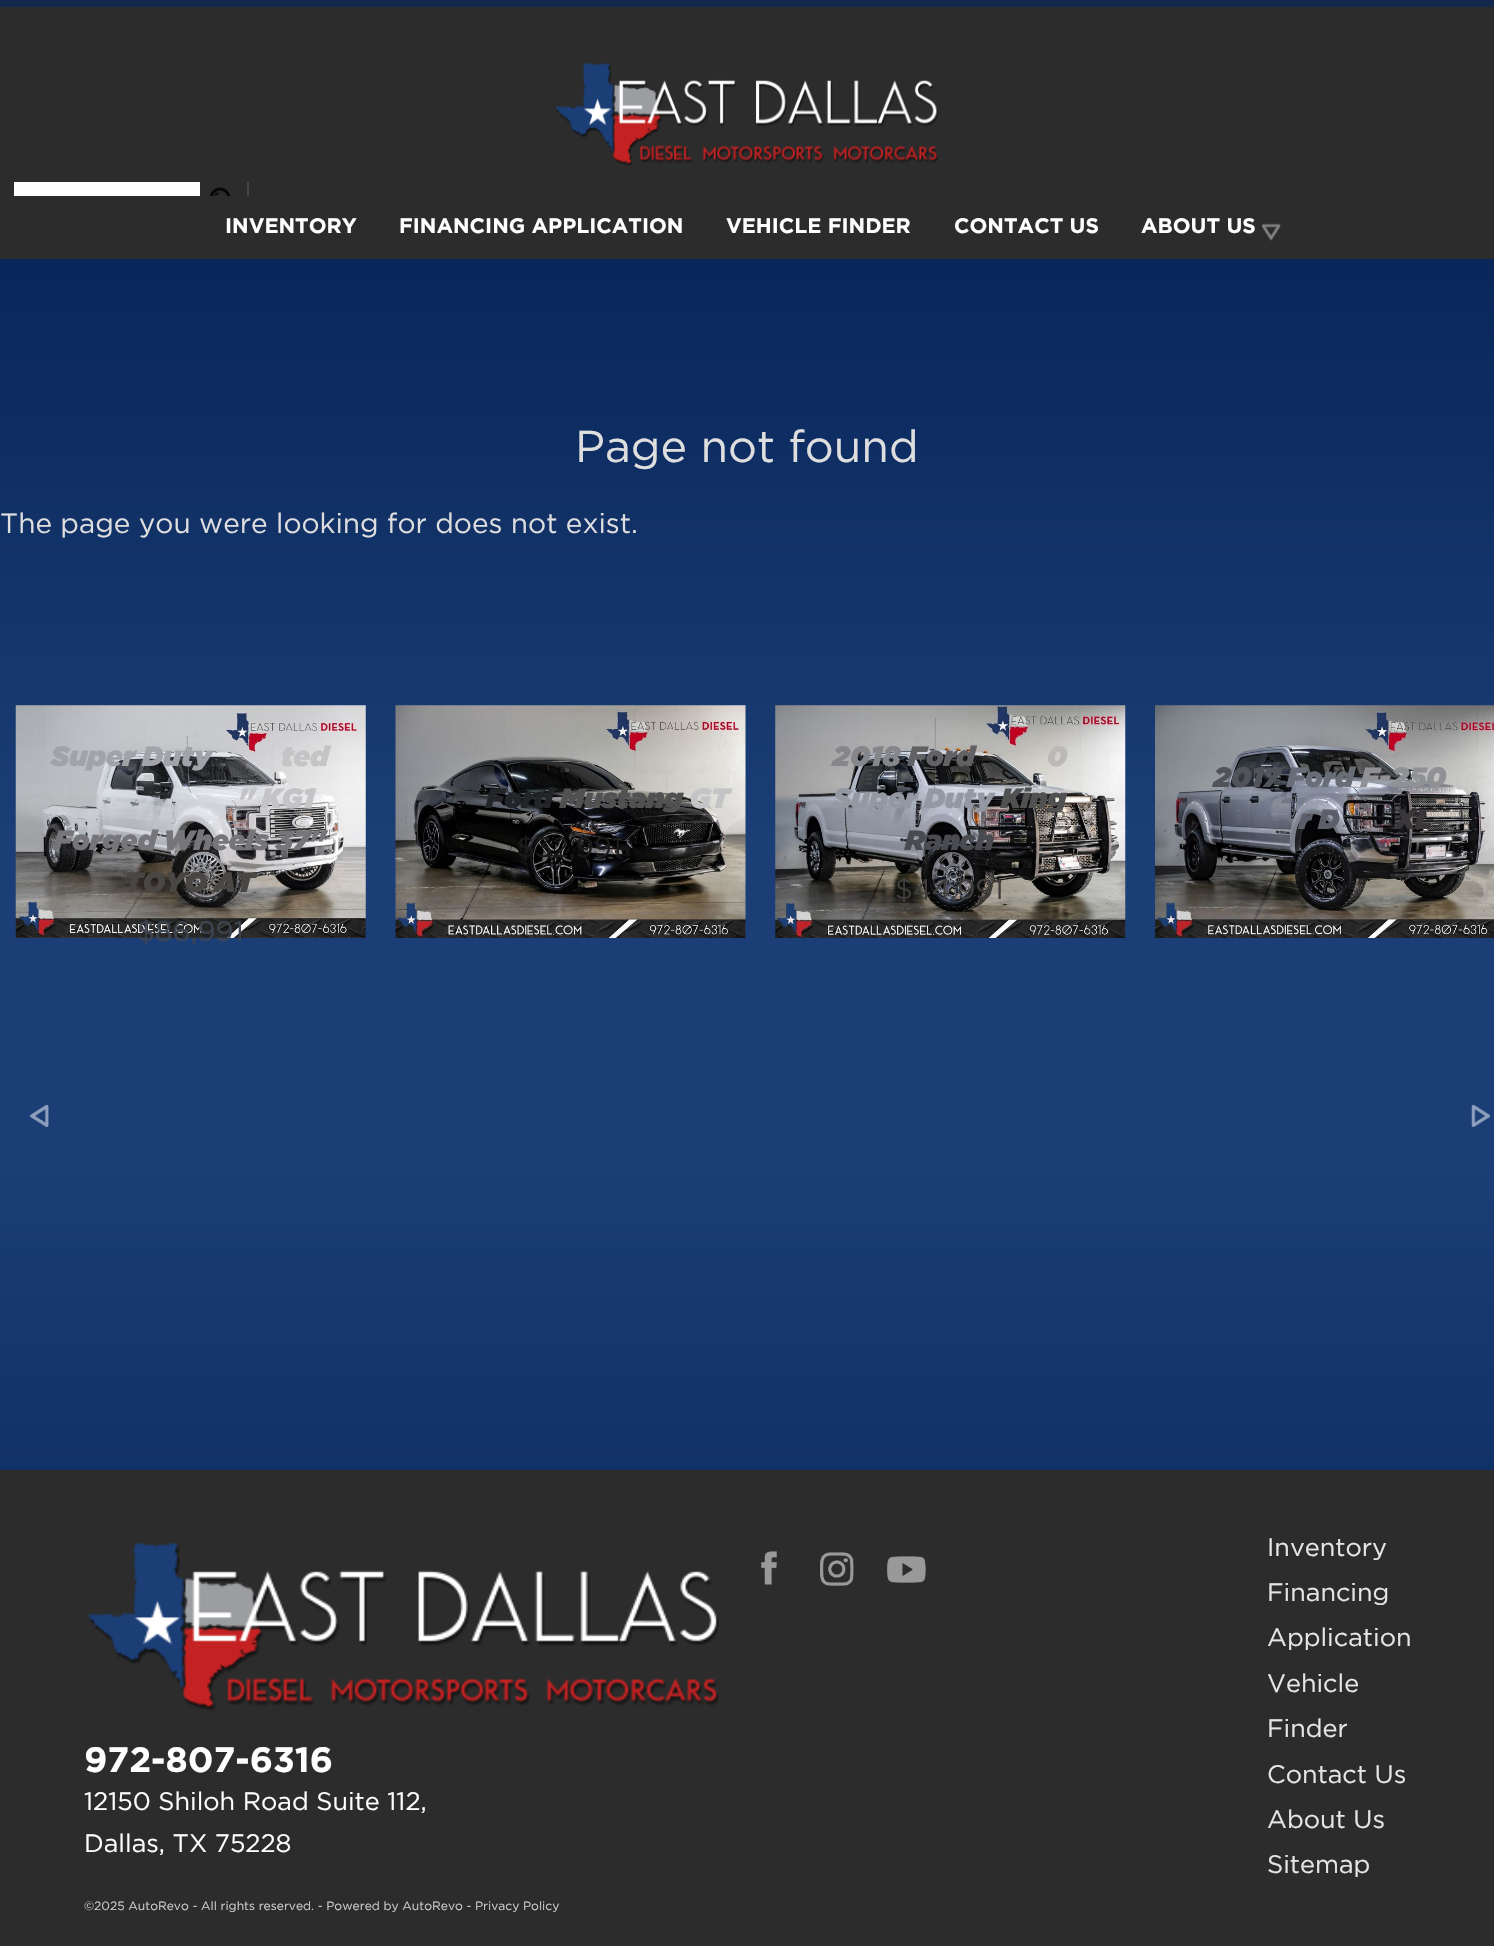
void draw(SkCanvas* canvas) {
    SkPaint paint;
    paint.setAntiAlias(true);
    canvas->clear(0xFFFFFFFF);
    {
        const SkColor colors[] = {0xFF001C4E, 0xFF1B3E76, 0xFF1B3E76, 0xFF001C4E};
        const float stops[] = {0, 0.42f, 0.58f, 1};
        const SkPoint ends[] = {{747, 0}, {747, 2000}};
        paint.setShader(SkGradientShader::MakeLinear(ends, colors, stops, 4, SkTileMode::kClamp));
        paint.setAlpha(255);
    }
    canvas->drawRect(SkRect::MakeXYWH(0, 259, 1494, 1211), paint);
    paint.setShader(nullptr);
    paint.setColor(0xFF2C2C2C);
    canvas->drawRect(SkRect::MakeXYWH(0, 7, 1494, 252), paint);
    paint.setColor(0xFF12284C);
    canvas->drawRect(SkRect::MakeXYWH(0, 0, 1494, 7), paint);
    canvas->drawImageRect(SkImages::DeferredFromEncodedData(SkData::MakeFromFileName("img1.png")), SkRect::MakeXYWH(556, 63, 382, 103), SkSamplingOptions());
    paint.setColor(0xFF454545);
    canvas->drawRect(SkRect::MakeXYWH(247, 182, 2, 14), paint);
    paint.setColor(0xFFFFFFFF);
    canvas->drawRect(SkRect::MakeXYWH(14, 182, 186, 14), paint);
    canvas->drawImageRect(SkImages::DeferredFromEncodedData(SkData::MakeFromFileName("img2.png")), SkRect::MakeXYWH(209, 187, 22, 9), SkSamplingOptions());
    SkFont font1(fontMgr->matchFamilyStyle("Gotham", SkFontStyle::Bold()), 21);
    font1.setSubpixel(true);
    paint.setColor(0xFFFEFEFE);
    canvas->drawString("INVENTORY", 225, 233, font1, paint);
    canvas->drawString("FINANCING APPLICATION", 399, 233, font1, paint);
    canvas->drawString("VEHICLE FINDER", 726, 233, font1, paint);
    canvas->drawString("CONTACT US", 954, 233, font1, paint);
    canvas->drawString("ABOUT US", 1141, 233, font1, paint);
    canvas->drawImageRect(SkImages::DeferredFromEncodedData(SkData::MakeFromFileName("img3.png")), SkRect::MakeXYWH(1262, 223, 19, 18), SkSamplingOptions());
    SkFont font2(fontMgr->matchFamilyStyle("Gotham", SkFontStyle::Normal()), 44.75f);
    font2.setSubpixel(true);
    paint.setColor(0xFFDEDEDE);
    canvas->drawString("Page not found", 575, 462, font2, paint);
    SkFont font3(fontMgr->matchFamilyStyle("Gotham", SkFontStyle::Normal()), 28);
    font3.setSubpixel(true);
    canvas->drawString("The page you were looking for does not exist.", 0, 533, font3, paint);
    canvas->drawImageRect(SkImages::DeferredFromEncodedData(SkData::MakeFromFileName("img4.png")), SkRect::MakeXYWH(15, 705, 351, 233), SkSamplingOptions());
    SkFont font4(fontMgr->matchFamilyStyle("Gotham", SkFontStyle(900, SkFontStyle::kNormal_Width, SkFontStyle::kItalic_Slant)), 28);
    font4.setSubpixel(true);
    paint.setColor(0xFFA1A3A9);
    canvas->drawString("Super Duty", 51, 766, font4, paint);
    paint.setColor(0xFFC4C3C5);
    canvas->drawString("ted", 281, 766, font4, paint);
    canvas->drawString("\" KG1", 239, 808, font4, paint);
    paint.setColor(0xFF76767A);
    canvas->drawString("Forged Wheels 37\"", 54, 850, font4, paint);
    paint.setColor(0xFF494643);
    canvas->drawString("TOYO AT", 124, 892, font4, paint);
    paint.setColor(0xFF3D4551);
    canvas->drawString("$86,991", 137, 941, font3, paint);
    canvas->drawImageRect(SkImages::DeferredFromEncodedData(SkData::MakeFromFileName("img5.png")), SkRect::MakeXYWH(395, 705, 351, 233), SkSamplingOptions());
    paint.setColor(0xFF232529);
    canvas->drawString("Ford", 486, 808, font4, paint);
    paint.setColor(0xFF515151);
    canvas->drawString("Mustang", 560, 808, font4, paint);
    paint.setColor(0xFFC4C3C5);
    canvas->drawString("GT", 690, 808, font4, paint);
    paint.setColor(0xFF1B1B1C);
    canvas->drawString("$32,991", 517, 857, font3, paint);
    canvas->drawImageRect(SkImages::DeferredFromEncodedData(SkData::MakeFromFileName("img6.png")), SkRect::MakeXYWH(775, 705, 351, 233), SkSamplingOptions());
    paint.setColor(0xFF85878A);
    canvas->drawString("2018", 832, 766, font4, paint);
    paint.setColor(0xFF626265);
    canvas->drawString("Ford", 908, 766, font4, paint);
    paint.setColor(0xFFBAB9B5);
    canvas->drawString("0", 1047, 766, font4, paint);
    paint.setColor(0xFF9498A3);
    canvas->drawString("Super Duty", 833, 808, font4, paint);
    paint.setColor(0xFF515151);
    canvas->drawString("King", 1001, 808, font4, paint);
    paint.setColor(0xFF4A4B51);
    canvas->drawString("Ranch", 905, 850, font4, paint);
    paint.setColor(0xFF3F3E3C);
    canvas->drawString("$44,991", 895, 899, font3, paint);
    canvas->drawImageRect(SkImages::DeferredFromEncodedData(SkData::MakeFromFileName("img7.png")), SkRect::MakeXYWH(1155, 705, 339, 233), SkSamplingOptions());
    paint.setColor(0xFF50545A);
    canvas->drawString("2017", 1213, 787, font4, paint);
    paint.setColor(0xFF686D77);
    canvas->drawString("Ford", 1287, 787, font4, paint);
    paint.setColor(0xFF8F9194);
    canvas->drawString("F-250", 1361, 787, font4, paint);
    paint.setColor(0xFF5C5E69);
    canvas->drawString("r D", 1299, 829, font4, paint);
    paint.setColor(0xFF393739);
    canvas->drawString("XL", 1395, 829, font4, paint);
    canvas->drawImageRect(SkImages::DeferredFromEncodedData(SkData::MakeFromFileName("img8.png")), SkRect::MakeXYWH(29, 1104, 20, 23), SkSamplingOptions());
    canvas->drawImageRect(SkImages::DeferredFromEncodedData(SkData::MakeFromFileName("img9.png")), SkRect::MakeXYWH(1471, 1104, 20, 23), SkSamplingOptions());
    paint.setColor(0xFF2C2C2C);
    canvas->drawRect(SkRect::MakeXYWH(0, 1470, 1494, 476), paint);
    canvas->drawImageRect(SkImages::DeferredFromEncodedData(SkData::MakeFromFileName("img10.png")), SkRect::MakeXYWH(761, 1551, 16, 34), SkSamplingOptions());
    canvas->drawImageRect(SkImages::DeferredFromEncodedData(SkData::MakeFromFileName("img11.png")), SkRect::MakeXYWH(820, 1552, 34, 34), SkSamplingOptions());
    canvas->drawImageRect(SkImages::DeferredFromEncodedData(SkData::MakeFromFileName("img12.png")), SkRect::MakeXYWH(887, 1556, 39, 27), SkSamplingOptions());
    SkFont font5(fontMgr->matchFamilyStyle("Gotham", SkFontStyle::Normal()), 25.25f);
    font5.setSubpixel(true);
    paint.setColor(0xFFE6E6E6);
    canvas->drawString("Inventory", 1267, 1556, font5, paint);
    canvas->drawString("Financing", 1267, 1601, font5, paint);
    canvas->drawString("Application", 1267, 1646, font5, paint);
    canvas->drawString("Vehicle", 1267, 1692, font5, paint);
    canvas->drawString("Finder", 1267, 1737, font5, paint);
    canvas->drawString("Contact Us", 1267, 1783, font5, paint);
    canvas->drawString("About Us", 1267, 1828, font5, paint);
    canvas->drawString("Sitemap", 1267, 1873, font5, paint);
    canvas->drawImageRect(SkImages::DeferredFromEncodedData(SkData::MakeFromFileName("img13.png")), SkRect::MakeXYWH(88, 1543, 631, 168), SkSamplingOptions());
    SkFont font6(fontMgr->matchFamilyStyle("Gotham", SkFontStyle::Bold()), 35.25f);
    font6.setSubpixel(true);
    paint.setColor(0xFFFEFEFE);
    canvas->drawString("972-807-6316", 84, 1772, font6, paint);
    canvas->drawString("12150 Shiloh Road Suite 112,", 84, 1810, font5, paint);
    canvas->drawString("Dallas, TX 75228", 84, 1852, font5, paint);
    SkFont font7(fontMgr->matchFamilyStyle("Gotham", SkFontStyle::Normal()), 12.1f);
    font7.setSubpixel(true);
    paint.setColor(0xFFCCCCCC);
    canvas->drawString("©2025 AutoRevo - All rights reserved. - Powered by AutoRevo - Privacy Policy", 84, 1910, font7, paint);
}
